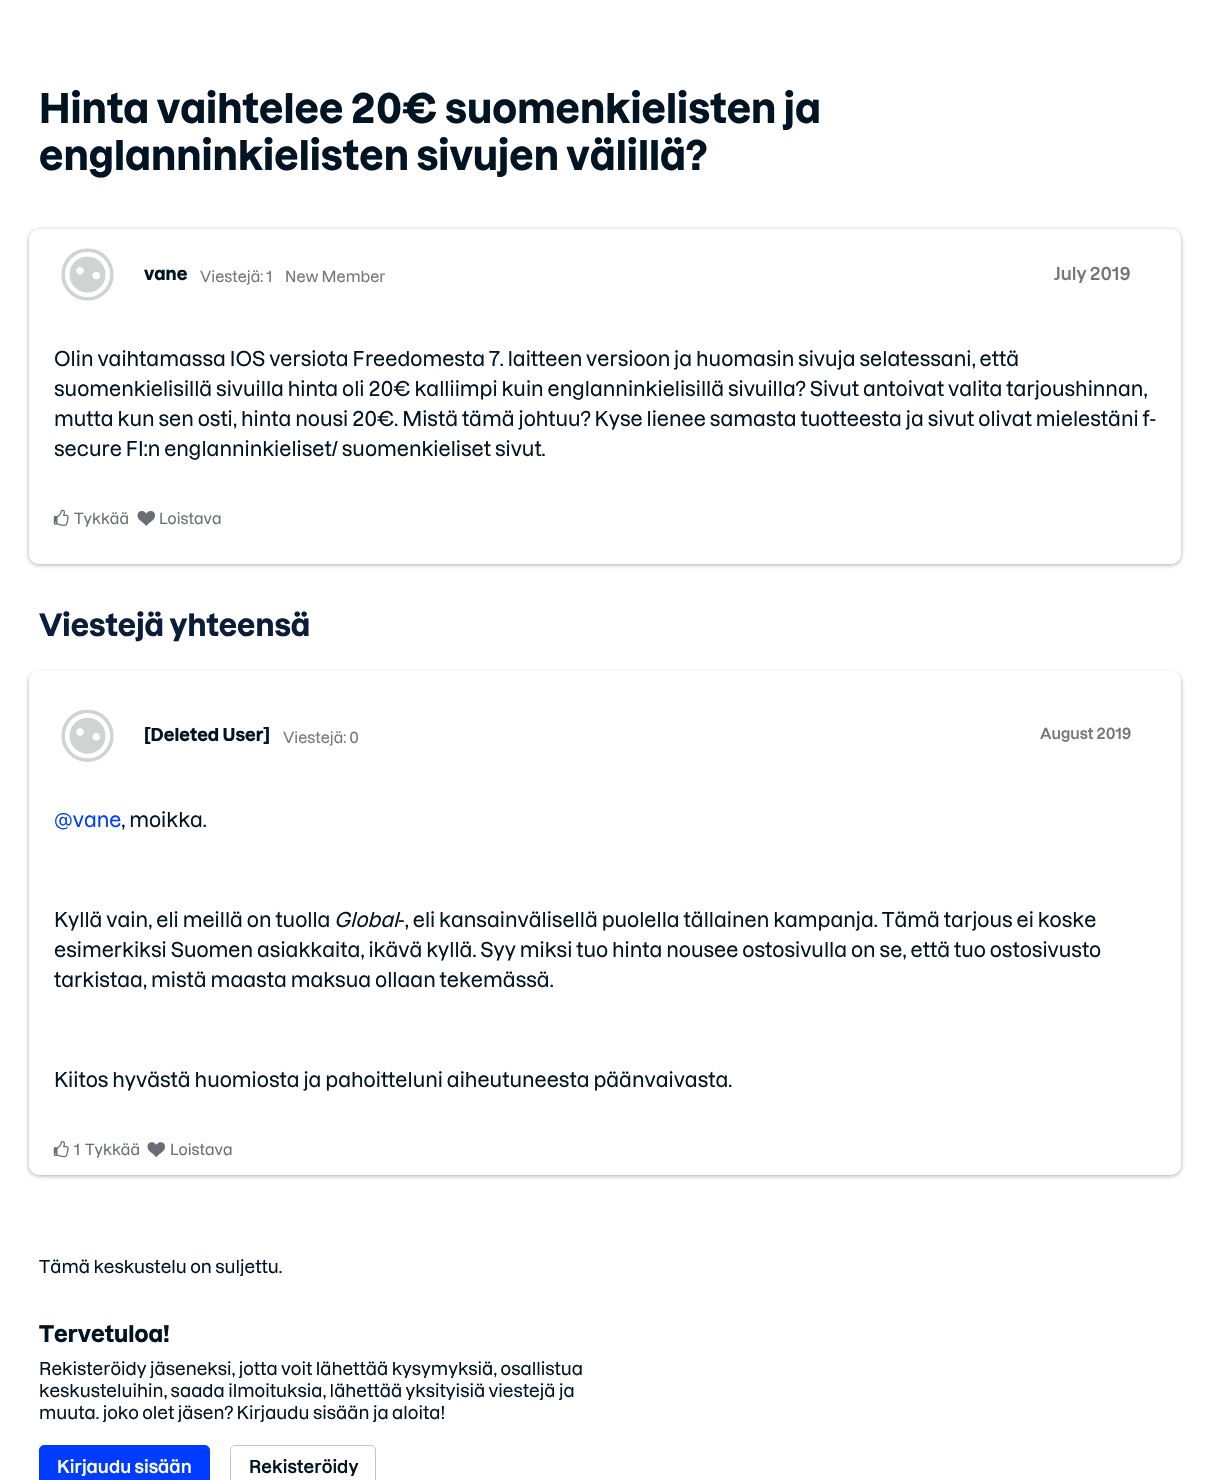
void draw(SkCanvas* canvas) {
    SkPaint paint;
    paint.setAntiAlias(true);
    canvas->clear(0xFFFFFFFF);
    SkFont font1(fontMgr->matchFamilyStyle("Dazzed", SkFontStyle::Bold()), 40);
    font1.setSubpixel(true);
    paint.setColor(0xFF001423);
    canvas->drawString("Hinta vaihtelee 20€ suomenkielisten ja", 39, 123, font1, paint);
    canvas->drawString("englanninkielisten sivujen välillä?", 39, 170, font1, paint);
    canvas->save();
    canvas->clipPath(SkPathBuilder(SkPathFillType::kEvenOdd).moveTo(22, 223).lineTo(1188, 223).lineTo(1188, 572).lineTo(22, 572).close().moveTo(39, 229).lineTo(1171, 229).cubicTo(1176.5f, 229, 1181, 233.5f, 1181, 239).lineTo(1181, 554).cubicTo(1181, 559.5f, 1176.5f, 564, 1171, 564).lineTo(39, 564).cubicTo(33.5f, 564, 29, 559.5f, 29, 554).lineTo(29, 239).cubicTo(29, 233.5f, 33.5f, 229, 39, 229).close().detach(), true);
    paint.setColor(0xFFACACAC);
    paint.setMaskFilter(SkMaskFilter::MakeBlur(kNormal_SkBlurStyle, 2));
    canvas->drawRoundRect(SkRect::MakeXYWH(29, 230, 1152, 335), 10, 10, paint);
    paint.setMaskFilter(nullptr);
    canvas->restore();
    canvas->drawImageRect(SkImages::DeferredFromEncodedData(SkData::MakeFromFileName("img1.png")), SkRect::MakeXYWH(61, 248, 53, 53), SkSamplingOptions());
    SkFont font2(fontMgr->matchFamilyStyle("Dazzed", SkFontStyle::Bold()), 17.5f);
    font2.setSubpixel(true);
    paint.setColor(0xFF001423);
    canvas->drawString("vane", 144, 280, font2, paint);
    SkFont font3(fontMgr->matchFamilyStyle("Dazzed", SkFontStyle(500, SkFontStyle::kNormal_Width, SkFontStyle::kUpright_Slant)), 15);
    font3.setSubpixel(true);
    paint.setColor(0xFF767676);
    canvas->drawString("Viestejä: 1", 200, 282, font3, paint);
    canvas->drawString("New Member", 285, 282, font3, paint);
    SkFont font4(fontMgr->matchFamilyStyle("Dazzed", SkFontStyle(600, SkFontStyle::kNormal_Width, SkFontStyle::kUpright_Slant)), 17.5f);
    font4.setSubpixel(true);
    canvas->drawString("July 2019", 1054, 280, font4, paint);
    SkFont font5(fontMgr->matchFamilyStyle("Dazzed", SkFontStyle(500, SkFontStyle::kNormal_Width, SkFontStyle::kUpright_Slant)), 20);
    font5.setSubpixel(true);
    paint.setColor(0xFF001423);
    canvas->drawString("Olin vaihtamassa IOS versiota Freedomesta 7. laitteen versioon ja huomasin sivuja selatessani, että", 54, 366, font5, paint);
    canvas->drawString("suomenkielisillä sivuilla hinta oli 20€ kalliimpi kuin englanninkielisillä sivuilla? Sivut antoivat valita tarjoushinnan,", 54, 396, font5, paint);
    canvas->drawString("mutta kun sen osti, hinta nousi 20€. Mistä tämä johtuu? Kyse lienee samasta tuotteesta ja sivut olivat mielestäni f-", 54, 426, font5, paint);
    canvas->drawString("secure FI:n englanninkieliset/ suomenkieliset sivut.", 54, 456, font5, paint);
    canvas->drawImageRect(SkImages::DeferredFromEncodedData(SkData::MakeFromFileName("img2.png")), SkRect::MakeXYWH(53, 509, 16, 17), SkSamplingOptions());
    paint.setColor(0xFF696E75);
    canvas->drawString("Tykkää", 74, 524, font3, paint);
    canvas->drawImageRect(SkImages::DeferredFromEncodedData(SkData::MakeFromFileName("img3.png")), SkRect::MakeXYWH(137, 511, 18, 15), SkSamplingOptions());
    canvas->drawString("Loistava", 159, 524, font3, paint);
    SkFont font6(fontMgr->matchFamilyStyle("Dazzed", SkFontStyle::Bold()), 30);
    font6.setSubpixel(true);
    paint.setColor(0xFF0A1E3C);
    canvas->drawString("Viestejä yhteensä", 39, 636, font6, paint);
    canvas->save();
    canvas->clipPath(SkPathBuilder(SkPathFillType::kEvenOdd).moveTo(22, 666).lineTo(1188, 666).lineTo(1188, 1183).lineTo(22, 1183).close().moveTo(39, 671).lineTo(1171, 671).cubicTo(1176.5f, 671, 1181, 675.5f, 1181, 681).lineTo(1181, 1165).cubicTo(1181, 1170.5f, 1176.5f, 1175, 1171, 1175).lineTo(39, 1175).cubicTo(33.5f, 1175, 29, 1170.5f, 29, 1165).lineTo(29, 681).cubicTo(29, 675.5f, 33.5f, 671, 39, 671).close().detach(), true);
    paint.setColor(0xFFACACAC);
    paint.setMaskFilter(SkMaskFilter::MakeBlur(kNormal_SkBlurStyle, 2));
    canvas->drawRoundRect(SkRect::MakeXYWH(29, 673, 1152, 503), 10, 10, paint);
    paint.setMaskFilter(nullptr);
    canvas->restore();
    canvas->drawImageRect(SkImages::DeferredFromEncodedData(SkData::MakeFromFileName("img4.png")), SkRect::MakeXYWH(61, 709, 53, 53), SkSamplingOptions());
    paint.setColor(0xFF001423);
    canvas->drawString("[Deleted User]", 144, 741, font2, paint);
    paint.setColor(0xFF767676);
    canvas->drawString("Viestejä: 0", 283, 743, font3, paint);
    SkFont font7(fontMgr->matchFamilyStyle("Dazzed", SkFontStyle(600, SkFontStyle::kNormal_Width, SkFontStyle::kUpright_Slant)), 15);
    font7.setSubpixel(true);
    canvas->drawString("August 2019", 1040, 739, font7, paint);
    paint.setColor(0xFF003CFF);
    canvas->drawString("@vane", 54, 827, font5, paint);
    paint.setColor(0xFF001423);
    canvas->drawString(", moikka.", 121, 827, font5, paint);
    canvas->drawString("Kyllä vain, eli meillä on tuolla", 54, 927, font5, paint);
    SkFont font8(fontMgr->matchFamilyStyle("Dazzed", SkFontStyle(500, SkFontStyle::kNormal_Width, SkFontStyle::kItalic_Slant)), 20);
    font8.setSubpixel(true);
    canvas->drawString("Global", 334, 927, font8, paint);
    canvas->drawString("-, eli kansainvälisellä puolella tällainen kampanja. Tämä tarjous ei koske", 398, 927, font5, paint);
    canvas->drawString("esimerkiksi Suomen asiakkaita, ikävä kyllä. Syy miksi tuo hinta nousee ostosivulla on se, että tuo ostosivusto", 54, 957, font5, paint);
    canvas->drawString("tarkistaa, mistä maasta maksua ollaan tekemässä.", 54, 987, font5, paint);
    canvas->drawString("Kiitos hyvästä huomiosta ja pahoitteluni aiheutuneesta päänvaivasta.", 54, 1087, font5, paint);
    canvas->drawImageRect(SkImages::DeferredFromEncodedData(SkData::MakeFromFileName("img5.png")), SkRect::MakeXYWH(53, 1140, 16, 18), SkSamplingOptions());
    paint.setColor(0xFF696E75);
    canvas->drawString("1", 74, 1155, font3, paint);
    canvas->drawString("Tykkää", 85, 1155, font3, paint);
    canvas->drawImageRect(SkImages::DeferredFromEncodedData(SkData::MakeFromFileName("img6.png")), SkRect::MakeXYWH(147, 1142, 18, 16), SkSamplingOptions());
    canvas->drawString("Loistava", 170, 1155, font3, paint);
    SkFont font9(fontMgr->matchFamilyStyle("Dazzed", SkFontStyle(500, SkFontStyle::kNormal_Width, SkFontStyle::kUpright_Slant)), 17.5f);
    font9.setSubpixel(true);
    paint.setColor(0xFF001423);
    canvas->drawString("Tämä keskustelu on suljettu.", 39, 1273, font9, paint);
    SkFont font10(fontMgr->matchFamilyStyle("Dazzed", SkFontStyle::Bold()), 22.5f);
    font10.setSubpixel(true);
    canvas->drawString("Tervetuloa!", 39, 1342, font10, paint);
    canvas->drawString("Rekisteröidy jäseneksi, jotta voit lähettää kysymyksiä, osallistua", 39, 1375, font9, paint);
    canvas->drawString("keskusteluihin, saada ilmoituksia, lähettää yksityisiä viestejä ja", 39, 1397, font9, paint);
    canvas->drawString("muuta. joko olet jäsen? Kirjaudu sisään ja aloita!", 39, 1419, font9, paint);
    paint.setColor(0xFF003CFF);
    canvas->drawRoundRect(SkRect::MakeXYWH(39.5f, 1445.5f, 170, 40), 4.5f, 4.5f, paint);
    paint.setStyle(SkPaint::kStroke_Style);
    paint.setStrokeWidth(1);
    canvas->drawRoundRect(SkRect::MakeXYWH(39.5f, 1445.5f, 170, 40), 4.5f, 4.5f, paint);
    paint.setStyle(SkPaint::kFill_Style);
    paint.setColor(0xFFFFFFFF);
    canvas->drawString("Kirjaudu sisään", 57, 1473, font4, paint);
    paint.setStyle(SkPaint::kStroke_Style);
    paint.setColor(0xFFC2C7CA);
    canvas->drawRoundRect(SkRect::MakeXYWH(230.5f, 1445.5f, 145, 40), 4.5f, 4.5f, paint);
    paint.setStyle(SkPaint::kFill_Style);
    paint.setColor(0xFF001423);
    canvas->drawString("Rekisteröidy", 249, 1473, font4, paint);
}
